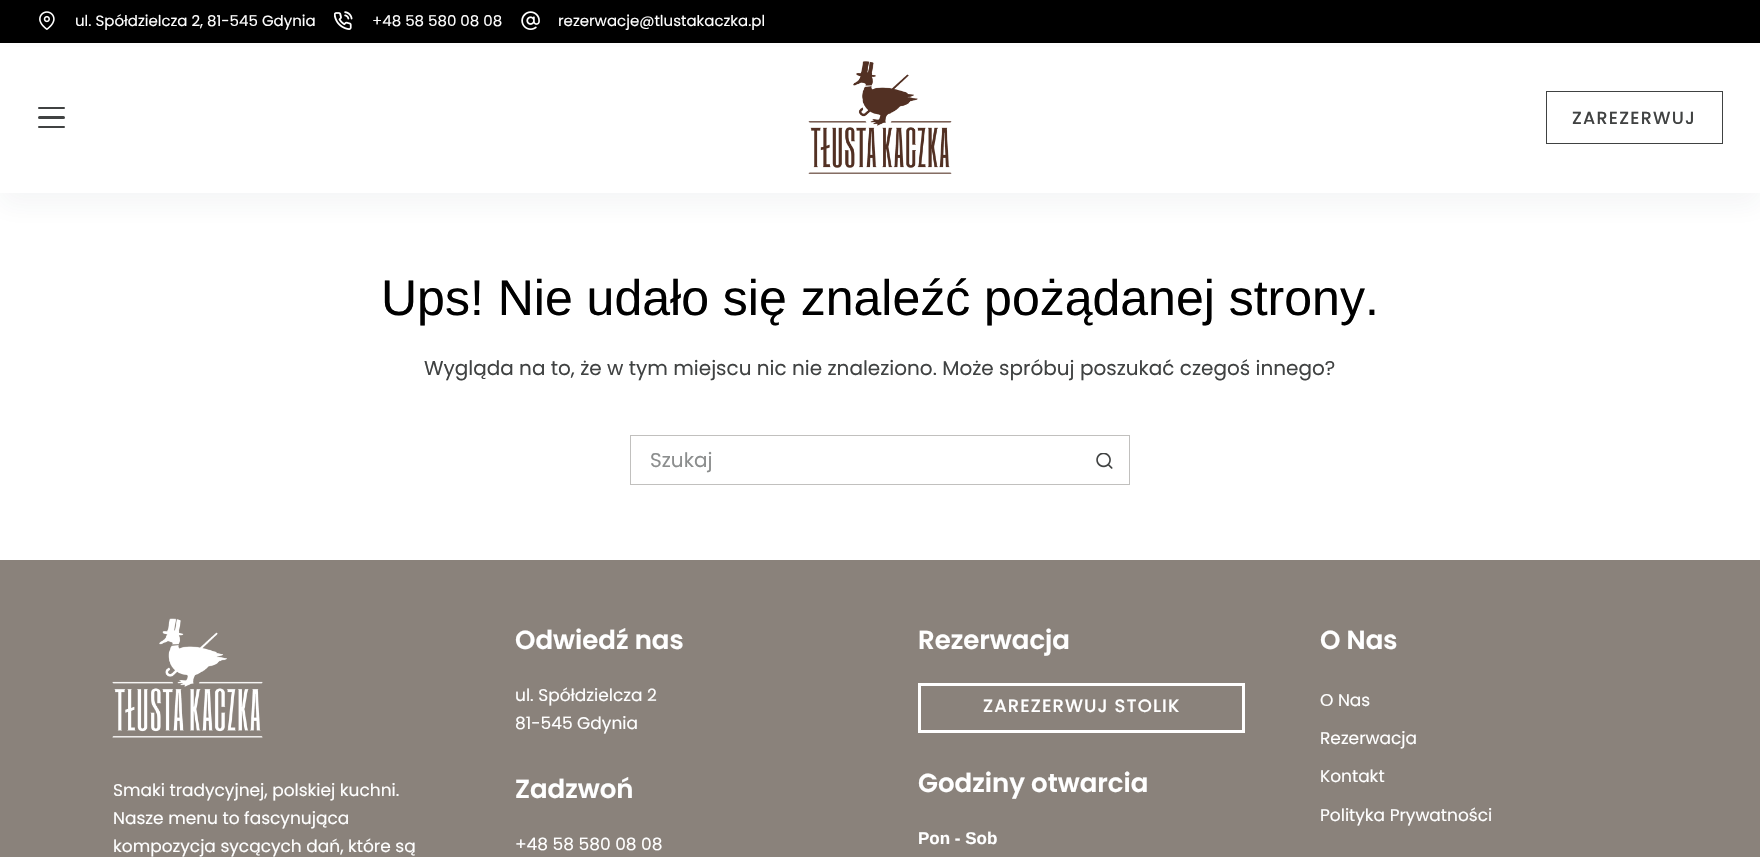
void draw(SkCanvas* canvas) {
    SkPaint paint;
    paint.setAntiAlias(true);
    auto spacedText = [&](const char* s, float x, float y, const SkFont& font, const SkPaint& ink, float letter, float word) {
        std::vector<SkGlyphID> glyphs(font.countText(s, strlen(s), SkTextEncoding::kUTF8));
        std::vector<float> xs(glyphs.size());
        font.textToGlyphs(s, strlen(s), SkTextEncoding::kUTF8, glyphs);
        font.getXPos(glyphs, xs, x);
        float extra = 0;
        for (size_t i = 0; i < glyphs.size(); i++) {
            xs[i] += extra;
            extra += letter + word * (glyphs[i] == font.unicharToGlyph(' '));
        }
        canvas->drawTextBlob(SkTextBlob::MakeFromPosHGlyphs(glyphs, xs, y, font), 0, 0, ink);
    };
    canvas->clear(0xFFFFFFFF);
    paint.setColor(0x0D2C3E50);
    paint.setMaskFilter(SkMaskFilter::MakeBlur(kNormal_SkBlurStyle, 12.5f));
    canvas->drawRect(SkRect::MakeXYWH(0, 55, 1760, 150), paint);
    paint.setMaskFilter(nullptr);
    paint.setColor(0xFF000000);
    canvas->drawRect(SkRect::MakeXYWH(0, 0, 1760, 43), paint);
    canvas->drawImageRect(SkImages::DeferredFromEncodedData(SkData::MakeFromFileName("img1.png")), SkRect::MakeXYWH(39, 11, 16, 19), SkSamplingOptions());
    SkFont font1(fontMgr->matchFamilyStyle("Poppins", SkFontStyle::Normal()), 15);
    font1.setSubpixel(true);
    paint.setColor(0xFFFFFFFF);
    canvas->drawString("ul. Spółdzielcza 2, 81-545 Gdynia", 75, 26, font1, paint);
    canvas->drawImageRect(SkImages::DeferredFromEncodedData(SkData::MakeFromFileName("img2.png")), SkRect::MakeXYWH(334, 11, 19, 19), SkSamplingOptions());
    canvas->drawString("+48 58 580 08 08", 372, 26, font1, paint);
    canvas->drawImageRect(SkImages::DeferredFromEncodedData(SkData::MakeFromFileName("img3.png")), SkRect::MakeXYWH(521, 11, 19, 19), SkSamplingOptions());
    canvas->drawString("rezerwacje@tlustakaczka.pl", 558, 26, font1, paint);
    canvas->drawRect(SkRect::MakeXYWH(0, 47, 1760, 146), paint);
    paint.setColor(0xFF404242);
    canvas->drawRoundRect(SkRect::MakeXYWH(38, 107, 27, 2), 1, 1, paint);
    canvas->drawRoundRect(SkRect::MakeXYWH(38, 116, 27, 3), 1.5f, 1.5f, paint);
    canvas->drawRoundRect(SkRect::MakeXYWH(38, 126, 27, 2), 1, 1, paint);
    canvas->drawImageRect(SkImages::DeferredFromEncodedData(SkData::MakeFromFileName("img4.png")), SkRect::MakeXYWH(808, 61, 144, 113), SkSamplingOptions());
    paint.setStyle(SkPaint::kStroke_Style);
    paint.setStrokeWidth(1);
    canvas->drawRect(SkRect::MakeXYWH(1546.5f, 91.5f, 176, 52), paint);
    SkFont font2(fontMgr->matchFamilyStyle("Poppins", SkFontStyle(500, SkFontStyle::kNormal_Width, SkFontStyle::kUpright_Slant)), 17.5f);
    font2.setSubpixel(true);
    paint.setStyle(SkPaint::kFill_Style);
    spacedText("ZAREZERWUJ", 1572, 124, font2, paint, 1.25f, 0);
    SkFont font3(fontMgr->matchFamilyStyle("Liberation Sans", SkFontStyle::Normal()), 50);
    font3.setSubpixel(true);
    paint.setColor(0xFF000000);
    canvas->drawString("Ups! Nie udało się znaleźć pożądanej strony.", 381, 315, font3, paint);
    SkFont font4(fontMgr->matchFamilyStyle("Poppins", SkFontStyle::Normal()), 20);
    font4.setSubpixel(true);
    paint.setColor(0xFF404242);
    canvas->drawString("Wygląda na to, że w tym miejscu nic nie znaleziono. Może spróbuj poszukać czegoś innego?", 424, 375, font4, paint);
    paint.setColor(0xFFC1C0BE);
    canvas->drawRect(SkRect::MakeXYWH(630, 435, 500, 1), paint);
    canvas->drawRect(SkRect::MakeXYWH(630, 484, 450, 1), paint);
    canvas->drawRect(SkRect::MakeXYWH(630, 435, 1, 50), paint);
    paint.setColor(0xFF8C8E8E);
    canvas->drawString("Szukaj", 650, 467, font4, paint);
    paint.setColor(0xFFC1C0BE);
    canvas->drawRect(SkRect::MakeXYWH(1129, 435, 1, 50), paint);
    canvas->drawRect(SkRect::MakeXYWH(1080, 484, 50, 1), paint);
    canvas->drawImageRect(SkImages::DeferredFromEncodedData(SkData::MakeFromFileName("img5.png")), SkRect::MakeXYWH(1096, 453, 17, 16), SkSamplingOptions());
    paint.setColor(0xFF8A827B);
    canvas->drawRect(SkRect::MakeXYWH(0, 560, 1760, 297), paint);
    canvas->drawImageRect(SkImages::DeferredFromEncodedData(SkData::MakeFromFileName("img6.png")), SkRect::MakeXYWH(112, 618, 151, 120), SkSamplingOptions());
    SkFont font5(fontMgr->matchFamilyStyle("Poppins", SkFontStyle::Normal()), 17);
    font5.setSubpixel(true);
    paint.setColor(0xFFFFFFFF);
    canvas->drawString("Smaki tradycyjnej, polskiej kuchni.", 113, 796, font5, paint);
    canvas->drawString("Nasze menu to fascynująca", 113, 824, font5, paint);
    canvas->drawString("kompozycja sycących dań, które są", 113, 852, font5, paint);
    SkFont font6(fontMgr->matchFamilyStyle("Poppins", SkFontStyle(600, SkFontStyle::kNormal_Width, SkFontStyle::kUpright_Slant)), 26);
    font6.setSubpixel(true);
    canvas->drawString("Odwiedź nas", 515, 649, font6, paint);
    canvas->drawString("ul. Spółdzielcza 2", 515, 701, font5, paint);
    canvas->drawString("81-545 Gdynia", 515, 729, font5, paint);
    canvas->drawString("Zadzwoń", 515, 798, font6, paint);
    canvas->drawString("+48 58 580 08 08", 515, 850, font5, paint);
    canvas->drawString("Rezerwacja", 918, 649, font6, paint);
    paint.setStyle(SkPaint::kStroke_Style);
    paint.setStrokeWidth(3);
    canvas->drawRect(SkRect::MakeXYWH(919.5f, 684.5f, 324, 47), paint);
    SkFont font7(fontMgr->matchFamilyStyle("Poppins", SkFontStyle(500, SkFontStyle::kNormal_Width, SkFontStyle::kUpright_Slant)), 18);
    font7.setSubpixel(true);
    paint.setStyle(SkPaint::kFill_Style);
    spacedText("ZAREZERWUJ STOLIK", 983, 712, font7, paint, 1.1f, 0);
    canvas->drawString("Godziny otwarcia", 918, 792, font6, paint);
    SkFont font8(fontMgr->matchFamilyStyle("Liberation Sans", SkFontStyle::Bold()), 17);
    font8.setSubpixel(true);
    canvas->drawString("Pon - Sob", 918, 844, font8, paint);
    canvas->drawString("O Nas", 1320, 649, font6, paint);
    canvas->drawString("O Nas", 1320, 706, font5, paint);
    canvas->drawString("Rezerwacja", 1320, 744, font5, paint);
    canvas->drawString("Kontakt", 1320, 782, font5, paint);
    canvas->drawString("Polityka Prywatności", 1320, 821, font5, paint);
}
